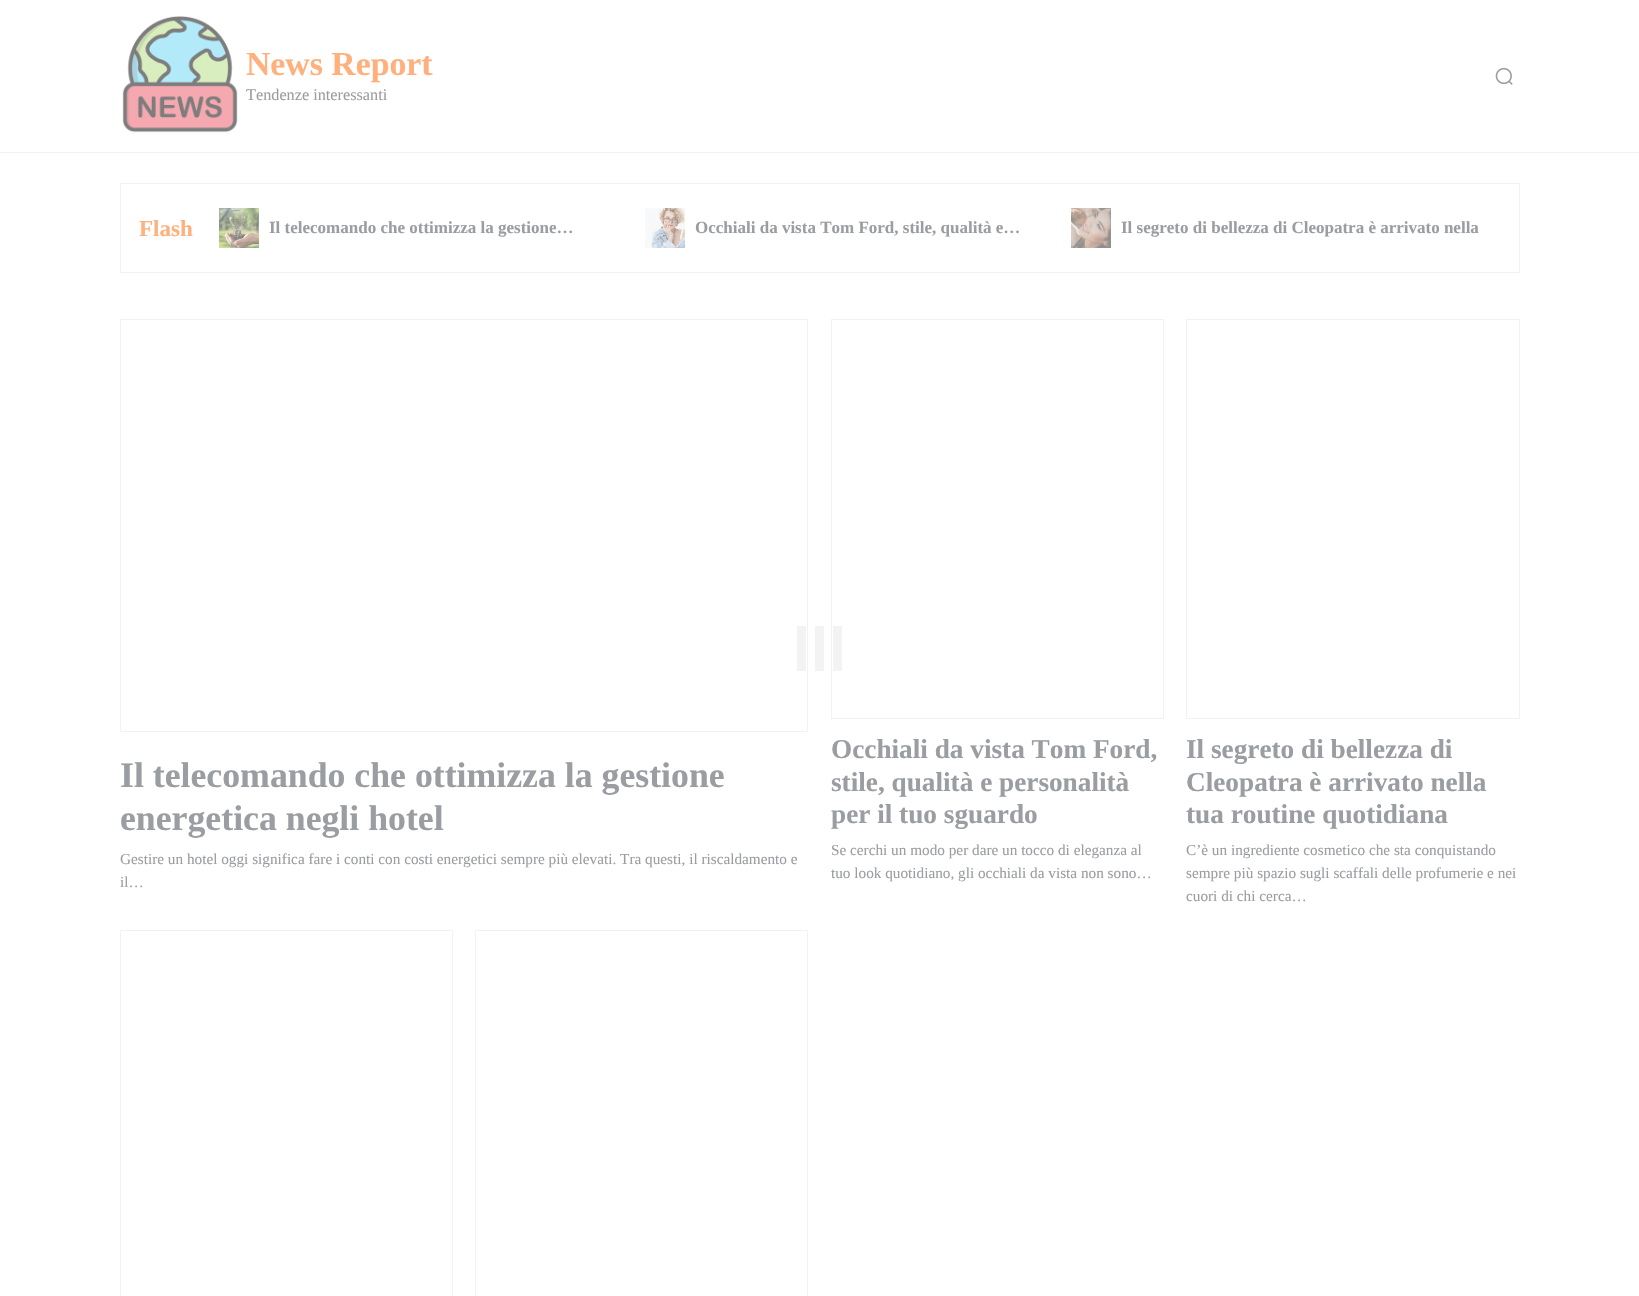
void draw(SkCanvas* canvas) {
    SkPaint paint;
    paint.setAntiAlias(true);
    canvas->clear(0xFFFFFFFF);
    paint.setColor(0xFFF3F2F2);
    canvas->drawRect(SkRect::MakeXYWH(0, 152, 1639, 1), paint);
    canvas->drawImageRect(SkImages::DeferredFromEncodedData(SkData::MakeFromFileName("img1.png")), SkRect::MakeXYWH(122, 16, 116, 117), SkSamplingOptions());
    SkFont font1(fontMgr->matchFamilyStyle("Liberation Serif", SkFontStyle::Bold()), 33.75f);
    font1.setSubpixel(true);
    paint.setColor(0xFFFFB07D);
    canvas->drawString("News Report", 246, 75, font1, paint);
    SkFont font2(fontMgr->matchFamilyStyle("Liberation Serif", SkFontStyle::Normal()), 16.25f);
    font2.setSubpixel(true);
    paint.setColor(0xFF9A9DA1);
    canvas->drawString("Tendenze interessanti", 246, 100, font2, paint);
    canvas->drawImageRect(SkImages::DeferredFromEncodedData(SkData::MakeFromFileName("img2.png")), SkRect::MakeXYWH(1495, 67, 18, 18), SkSamplingOptions());
    paint.setStyle(SkPaint::kStroke_Style);
    paint.setStrokeWidth(1);
    paint.setColor(0xFFF3F2F2);
    canvas->drawRect(SkRect::MakeXYWH(120.5f, 183.5f, 1399, 89), paint);
    SkFont font3(fontMgr->matchFamilyStyle("Liberation Serif", SkFontStyle::Bold()), 23);
    font3.setSubpixel(true);
    paint.setStyle(SkPaint::kFill_Style);
    paint.setColor(0xFFFFB07D);
    canvas->drawString("Flash", 139, 236, font3, paint);
    canvas->drawImageRect(SkImages::DeferredFromEncodedData(SkData::MakeFromFileName("img3.png")), SkRect::MakeXYWH(219, 208, 40, 40), SkSamplingOptions());
    SkFont font4(fontMgr->matchFamilyStyle("Liberation Serif", SkFontStyle::Bold()), 17);
    font4.setSubpixel(true);
    paint.setColor(0xFF9A9DA1);
    canvas->drawString("Il telecomando che ottimizza la gestione…", 269, 233, font4, paint);
    canvas->drawImageRect(SkImages::DeferredFromEncodedData(SkData::MakeFromFileName("img4.png")), SkRect::MakeXYWH(645, 208, 40, 40), SkSamplingOptions());
    canvas->drawString("Occhiali da vista Tom Ford, stile, qualità e…", 695, 233, font4, paint);
    canvas->drawImageRect(SkImages::DeferredFromEncodedData(SkData::MakeFromFileName("img5.png")), SkRect::MakeXYWH(1071, 208, 40, 40), SkSamplingOptions());
    canvas->drawString("Il segreto di bellezza di Cleopatra è arrivato nella", 1121, 233, font4, paint);
    paint.setStyle(SkPaint::kStroke_Style);
    paint.setColor(0xFFF3F2F2);
    canvas->drawRect(SkRect::MakeXYWH(831.5f, 319.5f, 332, 399), paint);
    paint.setStyle(SkPaint::kFill_Style);
    paint.setColor(0xFFF3F3F4);
    canvas->drawRect(SkRect::MakeXYWH(833, 626, 9, 45), paint);
    canvas->drawRect(SkRect::MakeXYWH(815, 626, 9, 45), paint);
    paint.setStyle(SkPaint::kStroke_Style);
    paint.setColor(0xFFF3F2F2);
    canvas->drawRect(SkRect::MakeXYWH(120.5f, 319.5f, 687, 412), paint);
    paint.setStyle(SkPaint::kFill_Style);
    paint.setColor(0xFFF3F3F4);
    canvas->drawRect(SkRect::MakeXYWH(797, 626, 9, 45), paint);
    SkFont font5(fontMgr->matchFamilyStyle("Liberation Serif", SkFontStyle::Bold()), 35.75f);
    font5.setSubpixel(true);
    paint.setColor(0xFF9A9DA1);
    canvas->drawString("Il telecomando che ottimizza la gestione", 120, 787, font5, paint);
    canvas->drawString("energetica negli hotel", 120, 830, font5, paint);
    SkFont font6(fontMgr->matchFamilyStyle("Liberation Serif", SkFontStyle::Normal()), 15.25f);
    font6.setSubpixel(true);
    canvas->drawString("Gestire un hotel oggi significa fare i conti con costi energetici sempre più elevati. Tra questi, il riscaldamento e", 120, 864, font6, paint);
    canvas->drawString("il…", 120, 887, font6, paint);
    SkFont font7(fontMgr->matchFamilyStyle("Liberation Serif", SkFontStyle::Bold()), 27.25f);
    font7.setSubpixel(true);
    canvas->drawString("Occhiali da vista Tom Ford,", 831, 758, font7, paint);
    canvas->drawString("stile, qualità e personalità", 831, 791, font7, paint);
    canvas->drawString("per il tuo sguardo", 831, 823, font7, paint);
    canvas->drawString("Se cerchi un modo per dare un tocco di eleganza al", 831, 855, font6, paint);
    canvas->drawString("tuo look quotidiano, gli occhiali da vista non sono…", 831, 878, font6, paint);
    paint.setStyle(SkPaint::kStroke_Style);
    paint.setColor(0xFFF3F2F2);
    canvas->drawRect(SkRect::MakeXYWH(1186.5f, 319.5f, 333, 399), paint);
    paint.setStyle(SkPaint::kFill_Style);
    paint.setColor(0xFF9A9DA1);
    canvas->drawString("Il segreto di bellezza di", 1186, 758, font7, paint);
    canvas->drawString("Cleopatra è arrivato nella", 1186, 791, font7, paint);
    canvas->drawString("tua routine quotidiana", 1186, 823, font7, paint);
    canvas->drawString("C’è un ingrediente cosmetico che sta conquistando", 1186, 855, font6, paint);
    canvas->drawString("sempre più spazio sugli scaffali delle profumerie e nei", 1186, 878, font6, paint);
    canvas->drawString("cuori di chi cerca…", 1186, 901, font6, paint);
    paint.setStyle(SkPaint::kStroke_Style);
    paint.setColor(0xFFF3F2F2);
    canvas->drawRect(SkRect::MakeXYWH(120.5f, 930.5f, 332, 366), paint);
    canvas->drawRect(SkRect::MakeXYWH(475.5f, 930.5f, 332, 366), paint);
}
